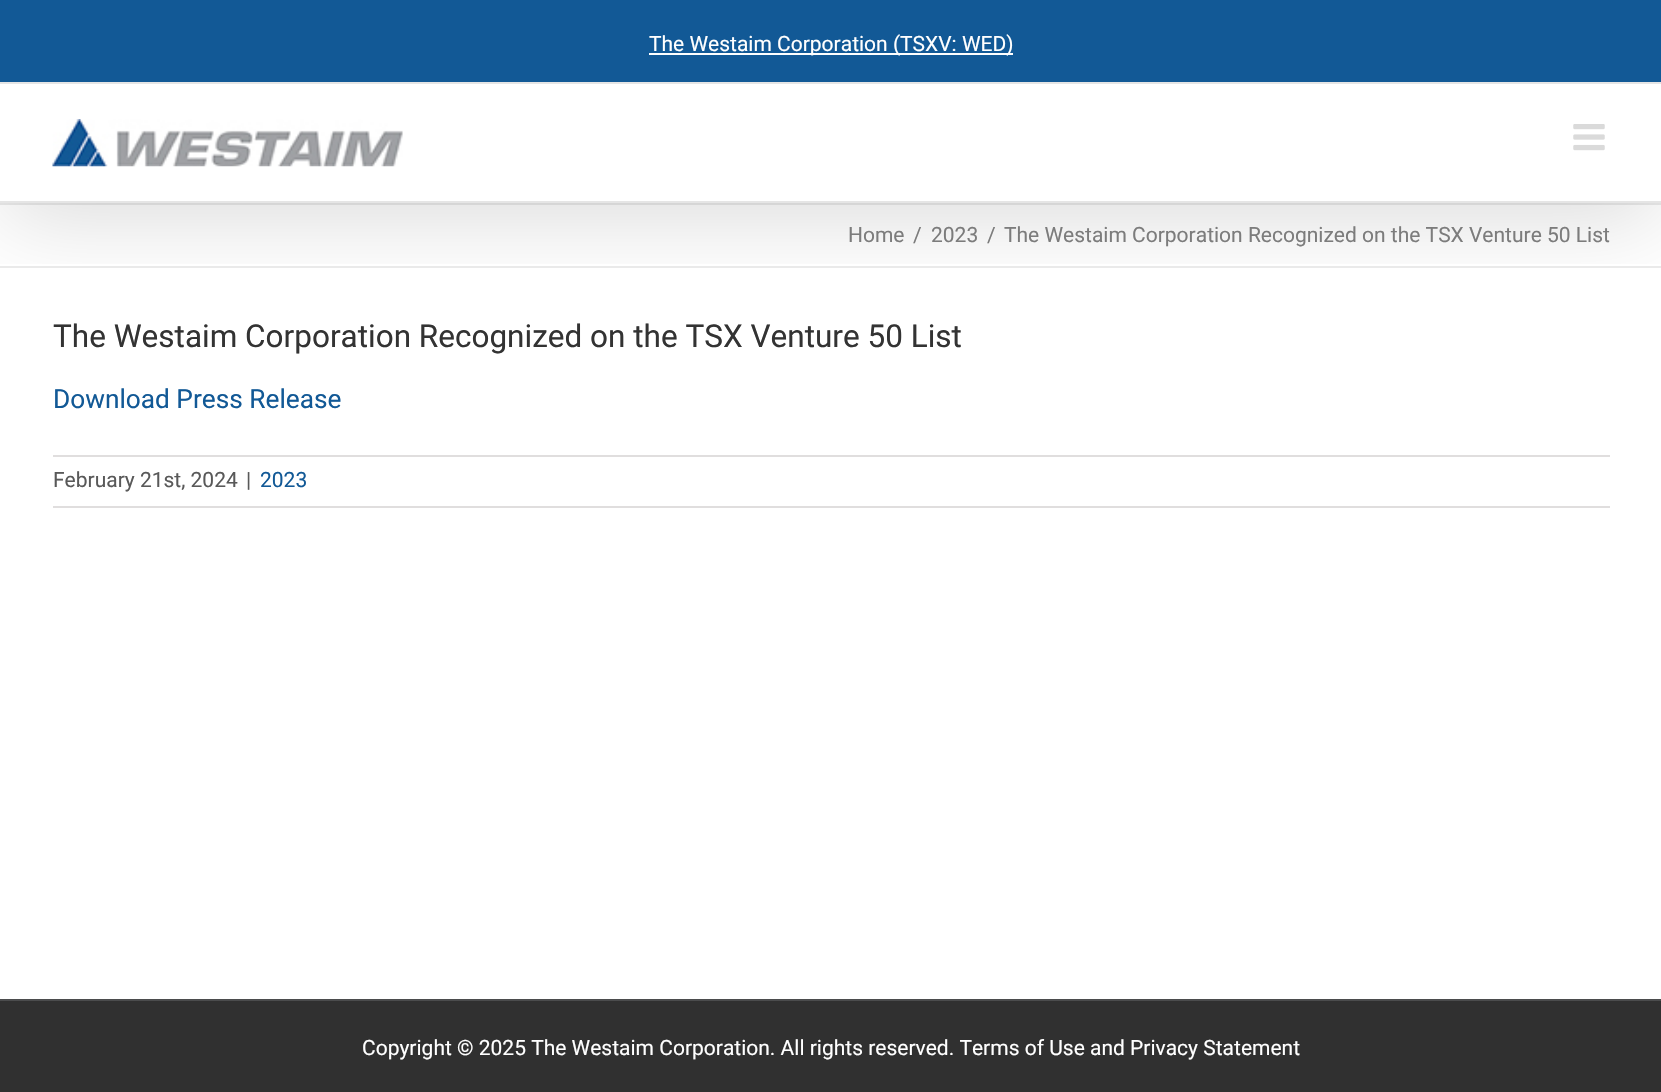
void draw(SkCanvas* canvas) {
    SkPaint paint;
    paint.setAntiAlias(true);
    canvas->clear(0xFFFFFFFF);
    paint.setColor(0xFFEAEAEA);
    canvas->drawRect(SkRect::MakeXYWH(0, 203, 1661, 2), paint);
    canvas->drawRect(SkRect::MakeXYWH(0, 266, 1661, 2), paint);
    canvas->save();
    canvas->clipRect(SkRect::MakeXYWH(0, 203, 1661, 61));
    paint.setColor(0x24000000);
    paint.setMaskFilter(SkMaskFilter::MakeBlur(kNormal_SkBlurStyle, 44));
    canvas->drawRect(SkRect::MakeXYWH(4, 21, 1655, 196), paint);
    paint.setMaskFilter(nullptr);
    canvas->restore();
    paint.setColor(0xFF125996);
    canvas->drawRect(SkRect::MakeXYWH(0, 0, 1661, 82), paint);
    paint.setColor(0xFFE5E5E5);
    canvas->drawRect(SkRect::MakeXYWH(0, 82, 1661, 2), paint);
    paint.setColor(0xFFFFFFFF);
    canvas->drawRect(SkRect::MakeXYWH(649, 53, 364, 2), paint);
    SkFont font1(fontMgr->matchFamilyStyle("Roboto", SkFontStyle::Normal()), 21);
    font1.setSubpixel(true);
    canvas->drawString("The Westaim Corporation (TSXV: WED)", 649, 51, font1, paint);
    paint.setColor(0xFFE5E5E5);
    canvas->drawRect(SkRect::MakeXYWH(0, 201, 1661, 2), paint);
    canvas->drawImageRect(SkImages::DeferredFromEncodedData(SkData::MakeFromFileName("img1.png")), SkRect::MakeXYWH(52, 119, 351, 48), SkSamplingOptions());
    canvas->drawImageRect(SkImages::DeferredFromEncodedData(SkData::MakeFromFileName("img2.png")), SkRect::MakeXYWH(1573, 124, 32, 27), SkSamplingOptions());
    paint.setColor(0xFF7C7C7C);
    canvas->drawString("Home", 848, 242, font1, paint);
    canvas->drawString("/", 913, 242, font1, paint);
    canvas->drawString("2023", 931, 242, font1, paint);
    canvas->drawString("/", 987, 242, font1, paint);
    canvas->drawString("The Westaim Corporation Recognized on the TSX Venture 50 List", 1004, 242, font1, paint);
    SkFont font2(fontMgr->matchFamilyStyle("Roboto", SkFontStyle::Normal()), 31.5f);
    font2.setSubpixel(true);
    paint.setColor(0xFF333333);
    canvas->drawString("The Westaim Corporation Recognized on the TSX Venture 50 List", 53, 347, font2, paint);
    SkFont font3(fontMgr->matchFamilyStyle("Roboto", SkFontStyle::Normal()), 26.25f);
    font3.setSubpixel(true);
    paint.setColor(0xFF125996);
    canvas->drawString("Download Press Release", 53, 408, font3, paint);
    paint.setColor(0xFFE0DEDE);
    canvas->drawRect(SkRect::MakeXYWH(53, 455, 1557, 2), paint);
    canvas->drawRect(SkRect::MakeXYWH(53, 506, 1557, 2), paint);
    paint.setColor(0xFF595959);
    canvas->drawString("February 21st, 2024", 53, 487, font1, paint);
    canvas->drawString("|", 246, 487, font1, paint);
    paint.setColor(0xFF125996);
    canvas->drawString("2023", 260, 487, font1, paint);
    paint.setColor(0xFF303030);
    canvas->drawRect(SkRect::MakeXYWH(0, 1001, 1661, 91), paint);
    paint.setColor(0xFF4B4C4D);
    canvas->drawRect(SkRect::MakeXYWH(0, 999, 1661, 2), paint);
    paint.setColor(0xFFFFFFFF);
    canvas->drawString("Copyright © 2025 The Westaim Corporation. All rights reserved. Terms of Use and Privacy Statement", 362, 1055, font1, paint);
}
